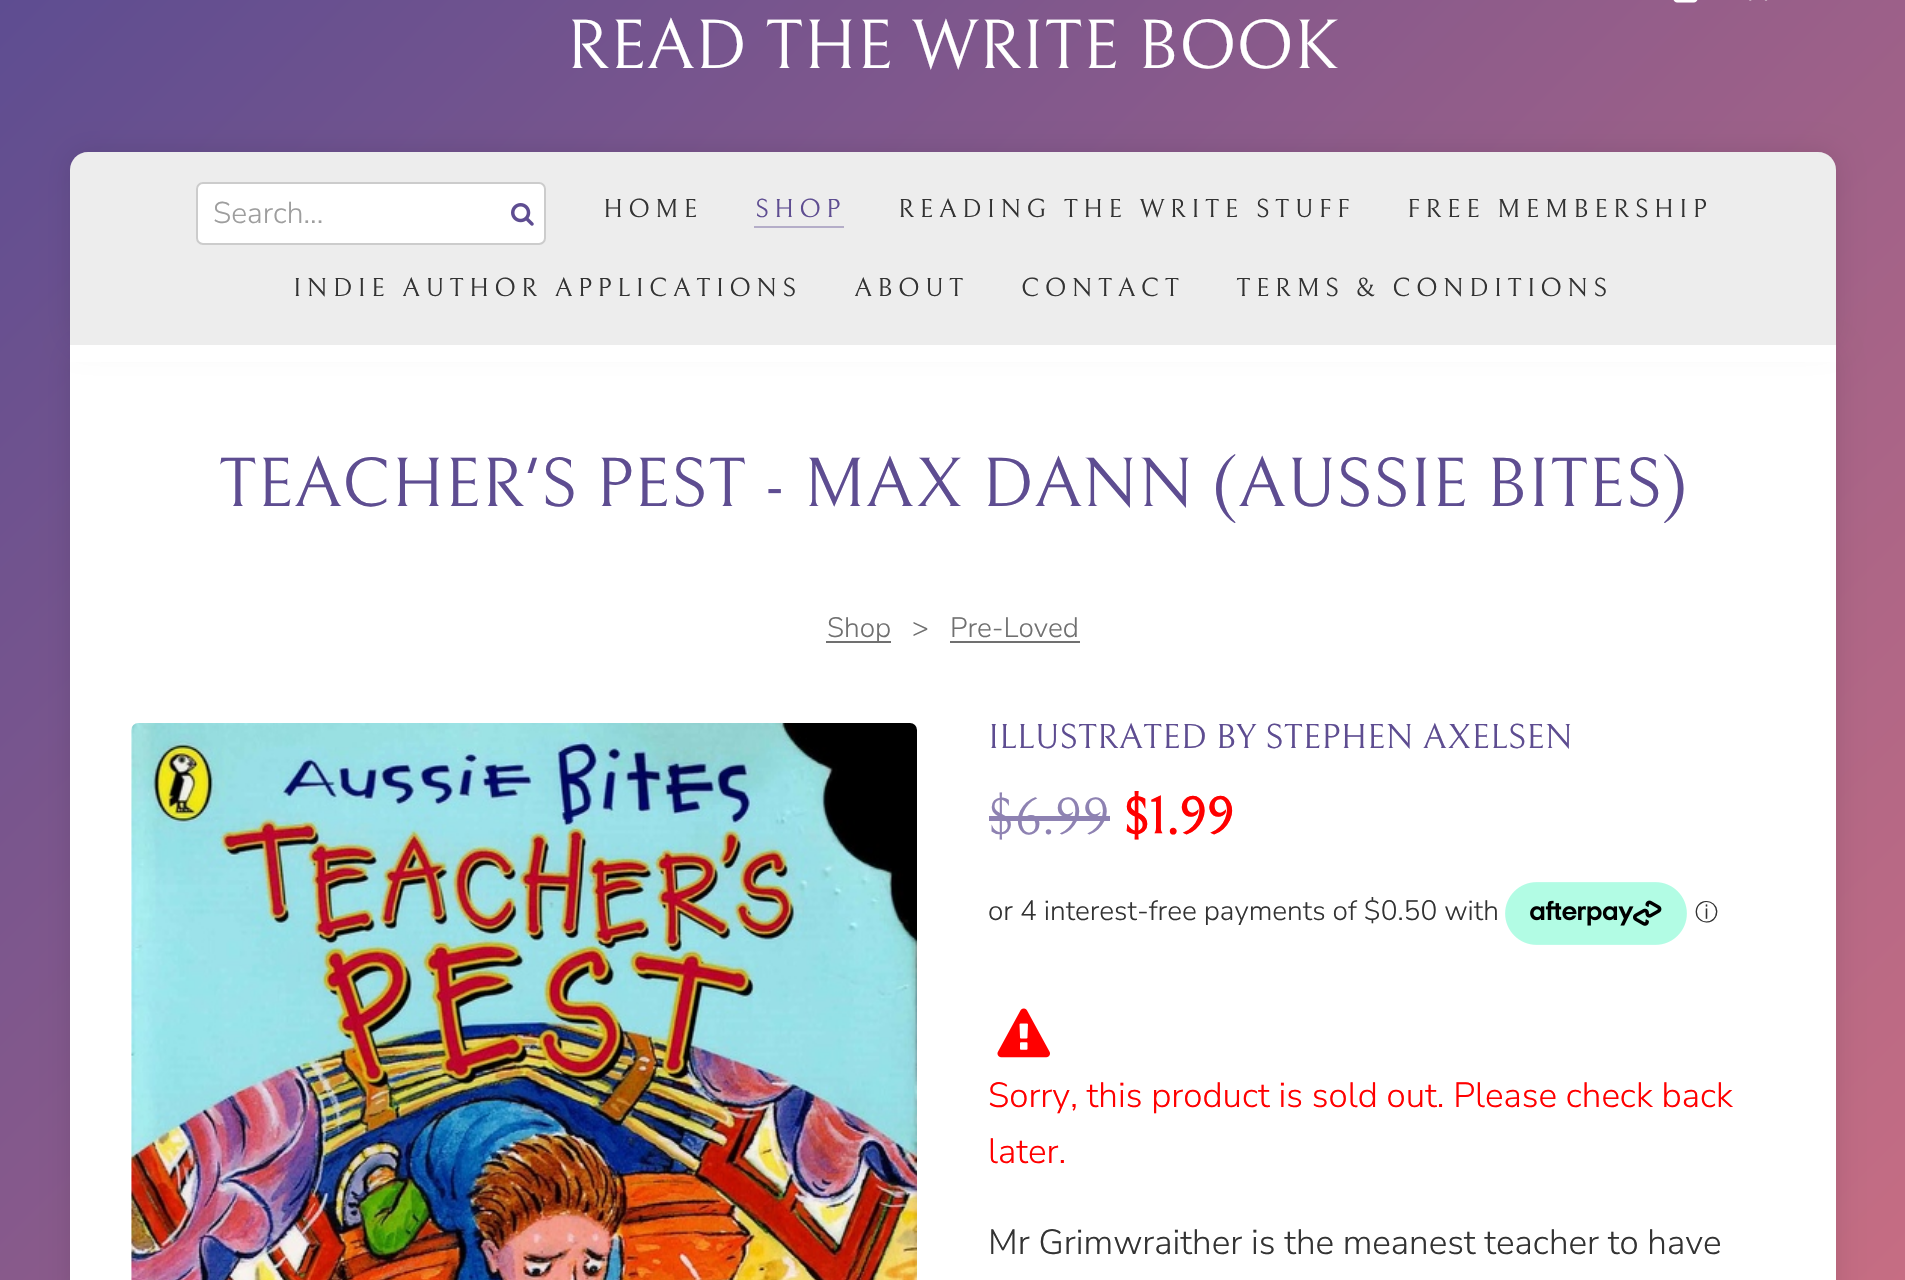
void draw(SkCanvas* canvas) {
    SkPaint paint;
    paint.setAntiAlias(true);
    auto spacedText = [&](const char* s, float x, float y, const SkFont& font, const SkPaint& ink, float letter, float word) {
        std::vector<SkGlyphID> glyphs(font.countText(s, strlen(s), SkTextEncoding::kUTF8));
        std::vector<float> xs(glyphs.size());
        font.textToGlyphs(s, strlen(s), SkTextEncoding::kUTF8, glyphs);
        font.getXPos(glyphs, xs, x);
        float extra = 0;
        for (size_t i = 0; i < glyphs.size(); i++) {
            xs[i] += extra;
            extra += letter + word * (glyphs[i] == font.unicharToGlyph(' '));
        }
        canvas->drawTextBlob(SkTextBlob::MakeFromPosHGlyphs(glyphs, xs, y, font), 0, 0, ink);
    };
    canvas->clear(0xFFFFFFFF);
    {
        const SkColor colors[] = {0xFF5E4D91, 0xFFC66D83};
        const float stops[] = {0, 1};
        const SkPoint ends[] = {{156, -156}, {1750, 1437}};
        paint.setShader(SkGradientShader::MakeLinear(ends, colors, stops, 2, SkTileMode::kClamp));
        paint.setAlpha(255);
    }
    canvas->drawRect(SkRect::MakeXYWH(0, 0, 1905, 1280), paint);
    canvas->drawImageRect(SkImages::DeferredFromEncodedData(SkData::MakeFromFileName("img1.png")), SkRect::MakeXYWH(1673, 0, 25, 3), SkSamplingOptions());
    canvas->drawImageRect(SkImages::DeferredFromEncodedData(SkData::MakeFromFileName("img2.png")), SkRect::MakeXYWH(1749, 0, 19, 1), SkSamplingOptions());
    SkFont font1(fontMgr->matchFamilyStyle("Bellefair", SkFontStyle::Normal()), 70);
    font1.setSubpixel(true);
    paint.setShader(nullptr);
    paint.setColor(0xFFFFFFFF);
    canvas->drawString("READ THE WRITE BOOK", 566, 68, font1, paint);
    paint.setColor(0x1A000000);
    paint.setMaskFilter(SkMaskFilter::MakeBlur(kNormal_SkBlurStyle, 13));
    canvas->drawRoundRect(SkRect::MakeXYWH(70, 345, 1766, 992), 18, 18, paint);
    paint.setMaskFilter(nullptr);
    paint.setColor(0xFFFFFFFF);
    canvas->drawRect(SkRect::MakeXYWH(70, 362, 1766, 918), paint);
    paint.setColor(0x1A000000);
    paint.setMaskFilter(SkMaskFilter::MakeBlur(kNormal_SkBlurStyle, 13));
    canvas->drawRoundRect(SkRect::MakeXYWH(70, 152, 1766, 193), 18, 18, paint);
    paint.setMaskFilter(nullptr);
    paint.setColor(0xFFFFFFFF);
    canvas->drawPath(SkPathBuilder().moveTo(88, 152).lineTo(1818, 152).cubicTo(1828, 152, 1836, 160, 1836, 170).lineTo(1836, 345).lineTo(70, 345).lineTo(70, 170).cubicTo(70, 160, 78, 152, 88, 152).close().detach(), paint);
    paint.setColor(0x12000000);
    canvas->drawPath(SkPathBuilder().moveTo(88, 152).lineTo(1818, 152).cubicTo(1828, 152, 1836, 160, 1836, 170).lineTo(1836, 345).lineTo(70, 345).lineTo(70, 170).cubicTo(70, 160, 78, 152, 88, 152).close().detach(), paint);
    paint.setColor(0xFFFFFFFF);
    canvas->drawRoundRect(SkRect::MakeXYWH(196, 182, 350, 63), 7, 7, paint);
    paint.setStyle(SkPaint::kStroke_Style);
    paint.setStrokeWidth(2);
    paint.setColor(0x33000000);
    canvas->drawRoundRect(SkRect::MakeXYWH(197, 183, 348, 61), 6, 6, paint);
    SkFont font2(fontMgr->matchFamilyStyle("Nunito Sans", SkFontStyle(300, SkFontStyle::kNormal_Width, SkFontStyle::kUpright_Slant)), 30);
    font2.setSubpixel(true);
    paint.setStyle(SkPaint::kFill_Style);
    paint.setColor(0xFF9E9E9E);
    canvas->drawString("Search...", 213, 223, font2, paint);
    canvas->drawImageRect(SkImages::DeferredFromEncodedData(SkData::MakeFromFileName("img3.png")), SkRect::MakeXYWH(511, 203, 23, 23), SkSamplingOptions());
    SkFont font3(fontMgr->matchFamilyStyle("Bellefair", SkFontStyle::Normal()), 26.25f);
    font3.setSubpixel(true);
    paint.setColor(0xFF333333);
    spacedText("HOME", 603, 217, font3, paint, 5.25f, 0);
    paint.setColor(0xFF5E4D91);
    spacedText("SHOP", 755, 217, font3, paint, 5.25f, 0);
    paint.setColor(0xFFB4ADC8);
    canvas->drawRect(SkRect::MakeXYWH(754, 226, 90, 2), paint);
    paint.setColor(0xFF333333);
    spacedText("READING THE WRITE STUFF", 898, 217, font3, paint, 5.25f, 0);
    spacedText("FREE MEMBERSHIP", 1407, 217, font3, paint, 5.25f, 0);
    spacedText("INDIE AUTHOR APPLICATIONS", 293, 296, font3, paint, 5.25f, 0);
    spacedText("ABOUT", 854, 296, font3, paint, 5.25f, 0);
    spacedText("CONTACT", 1021, 296, font3, paint, 5.25f, 0);
    spacedText("TERMS & CONDITIONS", 1236, 296, font3, paint, 5.25f, 0);
    paint.setColor(0xFFFFFFFF);
    canvas->drawRect(SkRect::MakeXYWH(70, 345, 1766, 17), paint);
    paint.setColor(0xFF5E4D91);
    canvas->drawString("TEACHER'S PEST - MAX DANN (AUSSIE BITES)", 218, 506, font1, paint);
    paint.setColor(0xFF707070);
    canvas->drawRect(SkRect::MakeXYWH(826, 641, 65, 2), paint);
    SkFont font4(fontMgr->matchFamilyStyle("Nunito Sans", SkFontStyle(300, SkFontStyle::kNormal_Width, SkFontStyle::kUpright_Slant)), 28);
    font4.setSubpixel(true);
    canvas->drawString("Shop", 827, 637, font4, paint);
    canvas->drawString(">", 912, 637, font4, paint);
    canvas->drawString("Pre-Loved", 950, 637, font4, paint);
    canvas->drawRect(SkRect::MakeXYWH(950, 641, 130, 2), paint);
    canvas->drawImageRect(SkImages::DeferredFromEncodedData(SkData::MakeFromFileName("img4.png")), SkRect::MakeXYWH(131, 723, 786, 557), SkSamplingOptions());
    SkFont font5(fontMgr->matchFamilyStyle("Bellefair", SkFontStyle::Normal()), 35);
    font5.setSubpixel(true);
    paint.setColor(0xFF5E4D91);
    canvas->drawString("ILLUSTRATED BY STEPHEN AXELSEN", 988, 748, font5, paint);
    SkFont font6(fontMgr->matchFamilyStyle("Bellefair", SkFontStyle::Normal()), 52.5f);
    font6.setSubpixel(true);
    paint.setColor(0xFF8E82B2);
    canvas->drawString("$6.99", 988, 834, font6, paint);
    canvas->drawRect(SkRect::MakeXYWH(989, 816, 121, 5), paint);
    SkFont font7(fontMgr->matchFamilyStyle("Bellefair", SkFontStyle::Bold()), 52.5f);
    font7.setSubpixel(true);
    paint.setColor(0xFFFF0000);
    canvas->drawString("$1.99", 1123, 834, font7, paint);
    paint.setColor(0xFF333333);
    canvas->drawString("or 4 interest-free payments of $0.50 with", 988, 920, font4, paint);
    canvas->drawImageRect(SkImages::DeferredFromEncodedData(SkData::MakeFromFileName("img5.png")), SkRect::MakeXYWH(1505, 882, 182, 63), SkSamplingOptions());
    SkFont font8(fontMgr->matchFamilyStyle("WenQuanYi Zen Hei", SkFontStyle(500, SkFontStyle::kNormal_Width, SkFontStyle::kUpright_Slant)), 23);
    font8.setSubpixel(true);
    canvas->drawString("ⓘ", 1695, 920, font8, paint);
    canvas->drawImageRect(SkImages::DeferredFromEncodedData(SkData::MakeFromFileName("img6.png")), SkRect::MakeXYWH(997, 1008, 53, 50), SkSamplingOptions());
    SkFont font9(fontMgr->matchFamilyStyle("Nunito Sans", SkFontStyle(300, SkFontStyle::kNormal_Width, SkFontStyle::kUpright_Slant)), 35);
    font9.setSubpixel(true);
    paint.setColor(0xFFFF0000);
    canvas->drawString("Sorry, this product is sold out. Please check back", 988, 1107, font9, paint);
    canvas->drawString("later.", 988, 1163, font9, paint);
    paint.setColor(0xFF333333);
    canvas->drawString("Mr Grimwraither is the meanest teacher to have", 988, 1254, font9, paint);
}
